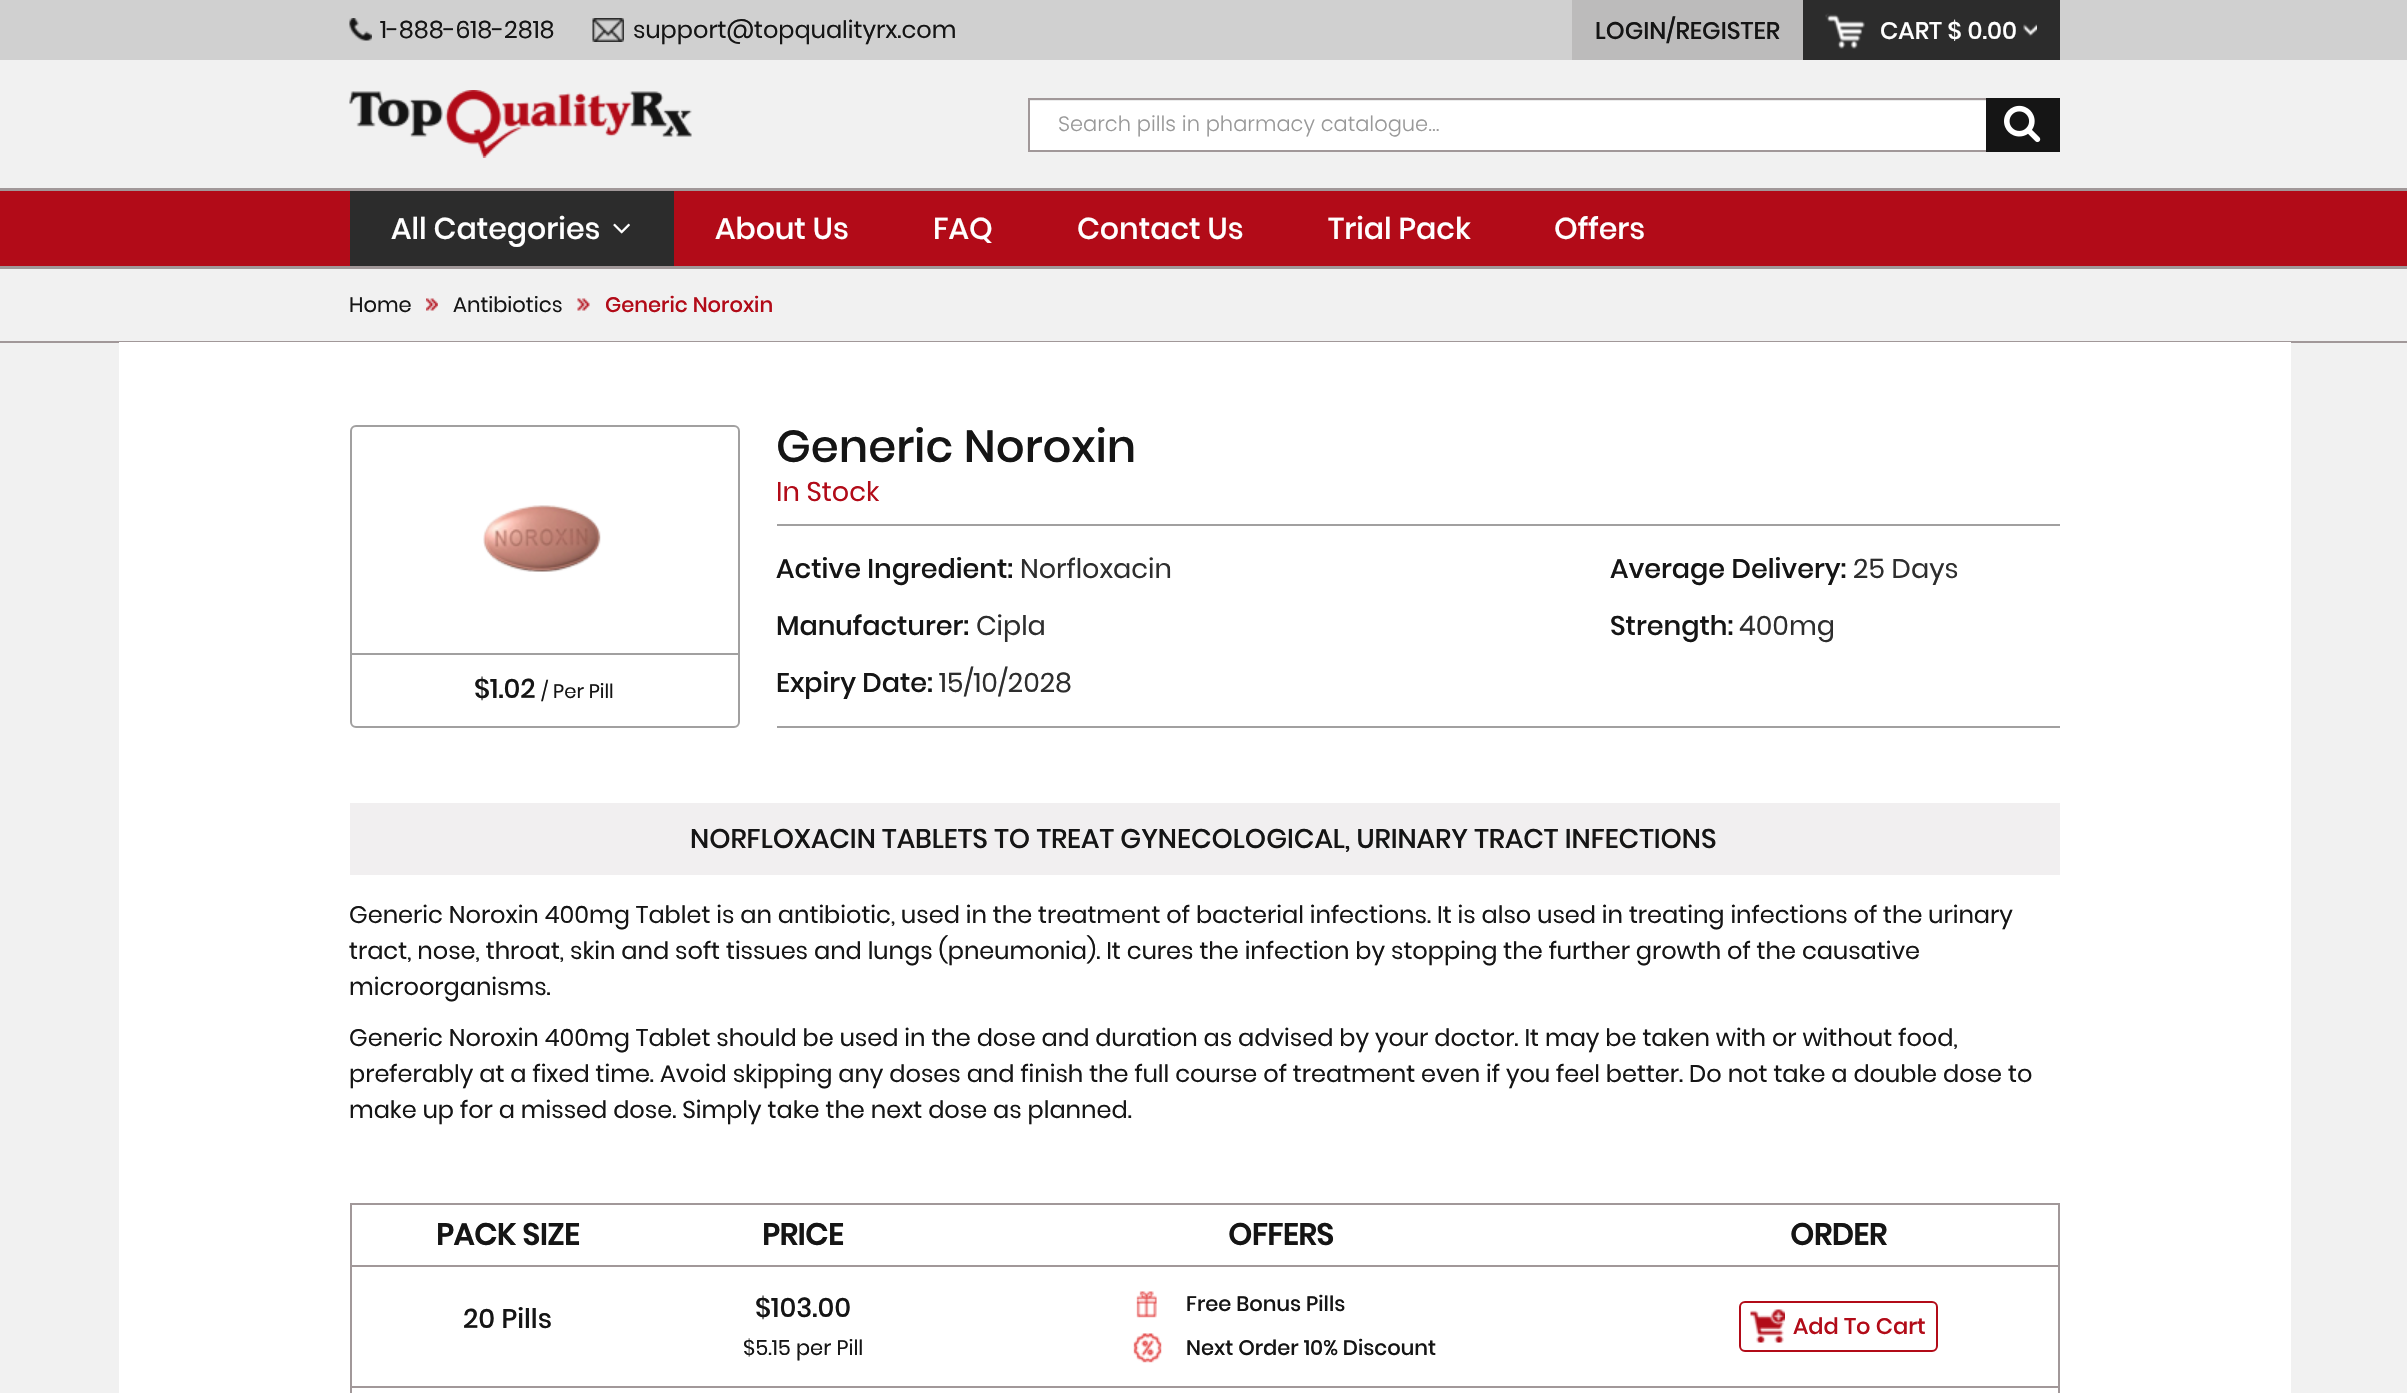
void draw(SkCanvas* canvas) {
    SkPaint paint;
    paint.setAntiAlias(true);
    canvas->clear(0xFFF1F1F1);
    paint.setColor(0xFFD0D0D0);
    canvas->drawRect(SkRect::MakeXYWH(0, 0, 2407, 60), paint);
    canvas->drawImageRect(SkImages::DeferredFromEncodedData(SkData::MakeFromFileName("img1.png")), SkRect::MakeXYWH(349, 18, 23, 23), SkSamplingOptions());
    SkFont font1(fontMgr->matchFamilyStyle("Poppins", SkFontStyle::Normal()), 24);
    font1.setSubpixel(true);
    paint.setColor(0xFF151515);
    canvas->drawString("1-888-618-2818", 380, 38, font1, paint);
    canvas->drawImageRect(SkImages::DeferredFromEncodedData(SkData::MakeFromFileName("img2.png")), SkRect::MakeXYWH(592, 18, 32, 24), SkSamplingOptions());
    canvas->drawString("support@topqualityrx.com", 633, 38, font1, paint);
    paint.setColor(0xFFBCBBBB);
    canvas->drawRect(SkRect::MakeXYWH(1572, 0, 231, 60), paint);
    SkFont font2(fontMgr->matchFamilyStyle("Poppins", SkFontStyle(500, SkFontStyle::kNormal_Width, SkFontStyle::kUpright_Slant)), 24);
    font2.setSubpixel(true);
    paint.setColor(0xFF151515);
    canvas->drawString("LOGIN/REGISTER", 1595, 39, font2, paint);
    paint.setColor(0xFF2C2C2C);
    canvas->drawRect(SkRect::MakeXYWH(1803, 0, 257, 60), paint);
    canvas->drawImageRect(SkImages::DeferredFromEncodedData(SkData::MakeFromFileName("img3.png")), SkRect::MakeXYWH(1825, 13, 40, 36), SkSamplingOptions());
    paint.setColor(0xFFFFFFFF);
    canvas->drawString("CART $ 0.00", 1880, 39, font2, paint);
    canvas->drawImageRect(SkImages::DeferredFromEncodedData(SkData::MakeFromFileName("img4.png")), SkRect::MakeXYWH(2023, 24, 14, 13), SkSamplingOptions());
    canvas->drawImageRect(SkImages::DeferredFromEncodedData(SkData::MakeFromFileName("img5.png")), SkRect::MakeXYWH(349, 90, 343, 68), SkSamplingOptions());
    canvas->drawRect(SkRect::MakeXYWH(1030, 101, 956, 49), paint);
    paint.setColor(0xFFECECEC);
    canvas->drawRect(SkRect::MakeXYWH(1029, 100, 957, 1), paint);
    paint.setStyle(SkPaint::kStroke_Style);
    paint.setStrokeWidth(2);
    paint.setColor(0xFFA19899);
    canvas->drawRect(SkRect::MakeXYWH(1029, 99, 1030, 52), paint);
    SkFont font3(fontMgr->matchFamilyStyle("Poppins", SkFontStyle(300, SkFontStyle::kNormal_Width, SkFontStyle::kUpright_Slant)), 21);
    font3.setSubpixel(true);
    paint.setStyle(SkPaint::kFill_Style);
    paint.setColor(0xFF999999);
    canvas->drawString("Search pills in pharmacy catalogue...", 1058, 131, font3, paint);
    paint.setColor(0xFF151515);
    canvas->drawRect(SkRect::MakeXYWH(1986, 98, 74, 54), paint);
    canvas->drawImageRect(SkImages::DeferredFromEncodedData(SkData::MakeFromFileName("img6.png")), SkRect::MakeXYWH(2004, 105, 37, 38), SkSamplingOptions());
    paint.setColor(0xFFB20B18);
    canvas->drawRect(SkRect::MakeXYWH(0, 191, 2407, 75), paint);
    paint.setColor(0xFFA19899);
    canvas->drawRect(SkRect::MakeXYWH(0, 188, 2407, 3), paint);
    canvas->drawRect(SkRect::MakeXYWH(0, 266, 2407, 3), paint);
    paint.setColor(0xFF2C2C2C);
    canvas->drawRect(SkRect::MakeXYWH(350, 191, 324, 75), paint);
    SkFont font4(fontMgr->matchFamilyStyle("Poppins", SkFontStyle(500, SkFontStyle::kNormal_Width, SkFontStyle::kUpright_Slant)), 30);
    font4.setSubpixel(true);
    paint.setColor(0xFFFFFFFF);
    canvas->drawString("All Categories", 391, 239, font4, paint);
    canvas->drawImageRect(SkImages::DeferredFromEncodedData(SkData::MakeFromFileName("img7.png")), SkRect::MakeXYWH(613, 223, 17, 11), SkSamplingOptions());
    canvas->drawString("About Us", 715, 239, font4, paint);
    canvas->drawString("FAQ", 933, 239, font4, paint);
    canvas->drawString("Contact Us", 1077, 239, font4, paint);
    canvas->drawString("Trial Pack", 1328, 239, font4, paint);
    canvas->drawString("Offers", 1554, 239, font4, paint);
    paint.setColor(0xFFA19899);
    canvas->drawRect(SkRect::MakeXYWH(0, 341, 2407, 2), paint);
    SkFont font5(fontMgr->matchFamilyStyle("Poppins", SkFontStyle::Normal()), 21);
    font5.setSubpixel(true);
    paint.setColor(0xFF151515);
    canvas->drawString("Home", 349, 312, font5, paint);
    canvas->drawImageRect(SkImages::DeferredFromEncodedData(SkData::MakeFromFileName("img8.png")), SkRect::MakeXYWH(426, 298, 12, 13), SkSamplingOptions());
    canvas->drawString("Antibiotics", 453, 312, font5, paint);
    canvas->drawImageRect(SkImages::DeferredFromEncodedData(SkData::MakeFromFileName("img9.png")), SkRect::MakeXYWH(577, 298, 13, 13), SkSamplingOptions());
    SkFont font6(fontMgr->matchFamilyStyle("Poppins", SkFontStyle(500, SkFontStyle::kNormal_Width, SkFontStyle::kUpright_Slant)), 21);
    font6.setSubpixel(true);
    paint.setColor(0xFFB20B18);
    canvas->drawString("Generic Noroxin", 605, 312, font6, paint);
    paint.setColor(0xFFFFFFFF);
    canvas->drawRect(SkRect::MakeXYWH(119, 342, 2172, 1051), paint);
    paint.setStyle(SkPaint::kStroke_Style);
    paint.setColor(0xFFA1A0A0);
    canvas->drawRoundRect(SkRect::MakeXYWH(351, 426, 388, 301), 5, 5, paint);
    paint.setStyle(SkPaint::kFill_Style);
    canvas->drawRect(SkRect::MakeXYWH(351, 653, 387, 2), paint);
    canvas->drawImageRect(SkImages::DeferredFromEncodedData(SkData::MakeFromFileName("img10.png")), SkRect::MakeXYWH(483, 505, 118, 67), SkSamplingOptions());
    SkFont font7(fontMgr->matchFamilyStyle("Poppins", SkFontStyle(500, SkFontStyle::kNormal_Width, SkFontStyle::kUpright_Slant)), 27);
    font7.setSubpixel(true);
    paint.setColor(0xFF151515);
    canvas->drawString("$1.02", 474, 698, font7, paint);
    SkFont font8(fontMgr->matchFamilyStyle("Poppins", SkFontStyle::Normal()), 19.5f);
    font8.setSubpixel(true);
    canvas->drawString("/ Per Pill", 541, 698, font8, paint);
    SkFont font9(fontMgr->matchFamilyStyle("Poppins", SkFontStyle(500, SkFontStyle::kNormal_Width, SkFontStyle::kUpright_Slant)), 45);
    font9.setSubpixel(true);
    canvas->drawString("Generic Noroxin", 776, 462, font9, paint);
    SkFont font10(fontMgr->matchFamilyStyle("Poppins", SkFontStyle::Normal()), 27);
    font10.setSubpixel(true);
    paint.setColor(0xFFB20B18);
    canvas->drawString("In Stock", 776, 501, font10, paint);
    paint.setColor(0xFFA1A0A0);
    canvas->drawRect(SkRect::MakeXYWH(777, 524, 1283, 2), paint);
    canvas->drawRect(SkRect::MakeXYWH(777, 726, 1283, 2), paint);
    paint.setColor(0xFF151515);
    canvas->drawString("Active Ingredient:", 776, 578, font7, paint);
    paint.setColor(0xFF2E2E2E);
    canvas->drawString("Norfloxacin", 1020, 578, font10, paint);
    paint.setColor(0xFF151515);
    canvas->drawString("Average Delivery:", 1610, 578, font7, paint);
    paint.setColor(0xFF2E2E2E);
    canvas->drawString("25 Days", 1853, 578, font10, paint);
    paint.setColor(0xFF151515);
    canvas->drawString("Manufacturer:", 776, 635, font7, paint);
    paint.setColor(0xFF2E2E2E);
    canvas->drawString("Cipla", 976, 635, font10, paint);
    paint.setColor(0xFF151515);
    canvas->drawString("Strength:", 1610, 635, font7, paint);
    paint.setColor(0xFF2E2E2E);
    canvas->drawString("400mg", 1739, 635, font10, paint);
    paint.setColor(0xFF151515);
    canvas->drawString("Expiry Date:", 776, 692, font7, paint);
    paint.setColor(0xFF2E2E2E);
    canvas->drawString("15/10/2028", 939, 692, font10, paint);
    paint.setColor(0xFFF1EFF0);
    canvas->drawRect(SkRect::MakeXYWH(350, 803, 1710, 72), paint);
    paint.setColor(0xFF151515);
    canvas->drawString("NORFLOXACIN TABLETS TO TREAT GYNECOLOGICAL, URINARY TRACT INFECTIONS", 690, 848, font7, paint);
    canvas->drawString("Generic Noroxin 400mg Tablet is an antibiotic, used in the treatment of bacterial infections. It is also used in treating infections of the urinary", 349, 923, font1, paint);
    canvas->drawString("tract, nose, throat, skin and soft tissues and lungs (pneumonia). It cures the infection by stopping the further growth of the causative", 349, 959, font1, paint);
    canvas->drawString("microorganisms.", 349, 995, font1, paint);
    canvas->drawString("Generic Noroxin 400mg Tablet should be used in the dose and duration as advised by your doctor. It may be taken with or without food,", 349, 1046, font1, paint);
    canvas->drawString("preferably at a fixed time. Avoid skipping any doses and finish the full course of treatment even if you feel better. Do not take a double dose to", 349, 1082, font1, paint);
    canvas->drawString("make up for a missed dose. Simply take the next dose as planned.", 349, 1118, font1, paint);
    paint.setColor(0xFFA19899);
    canvas->drawRect(SkRect::MakeXYWH(350, 1203, 1710, 2), paint);
    canvas->drawRect(SkRect::MakeXYWH(2058, 1203, 2, 190), paint);
    canvas->drawRect(SkRect::MakeXYWH(350, 1203, 2, 190), paint);
    SkFont font11(fontMgr->matchFamilyStyle("Poppins", SkFontStyle::Bold()), 30);
    font11.setSubpixel(true);
    paint.setColor(0xFF151515);
    canvas->drawString("PACK SIZE", 436, 1245, font11, paint);
    canvas->drawString("PRICE", 762, 1245, font11, paint);
    canvas->drawString("OFFERS", 1228, 1245, font11, paint);
    canvas->drawString("ORDER", 1790, 1245, font11, paint);
    canvas->drawString("20 Pills", 463, 1328, font7, paint);
    canvas->drawString("$103.00", 755, 1317, font7, paint);
    canvas->drawString("$5.15 per Pill", 743, 1355, font5, paint);
    canvas->drawImageRect(SkImages::DeferredFromEncodedData(SkData::MakeFromFileName("img11.png")), SkRect::MakeXYWH(1136, 1291, 21, 27), SkSamplingOptions());
    canvas->drawString("Free Bonus Pills", 1186, 1311, font6, paint);
    canvas->drawImageRect(SkImages::DeferredFromEncodedData(SkData::MakeFromFileName("img12.png")), SkRect::MakeXYWH(1133, 1333, 29, 30), SkSamplingOptions());
    canvas->drawString("Next Order 10% Discount", 1186, 1355, font6, paint);
    paint.setColor(0xFFA19899);
    canvas->drawRect(SkRect::MakeXYWH(351, 1265, 1709, 2), paint);
    paint.setStyle(SkPaint::kStroke_Style);
    paint.setColor(0xFFB20B18);
    canvas->drawRoundRect(SkRect::MakeXYWH(1740, 1302, 197, 49), 5, 5, paint);
    canvas->drawImageRect(SkImages::DeferredFromEncodedData(SkData::MakeFromFileName("img13.png")), SkRect::MakeXYWH(1750, 1309, 35, 34), SkSamplingOptions());
    SkFont font12(fontMgr->matchFamilyStyle("Poppins", SkFontStyle(500, SkFontStyle::kNormal_Width, SkFontStyle::kUpright_Slant)), 22.5f);
    font12.setSubpixel(true);
    paint.setStyle(SkPaint::kFill_Style);
    canvas->drawString("Add To Cart", 1793, 1334, font12, paint);
    paint.setColor(0xFFA19899);
    canvas->drawRect(SkRect::MakeXYWH(351, 1386, 1709, 2), paint);
}
